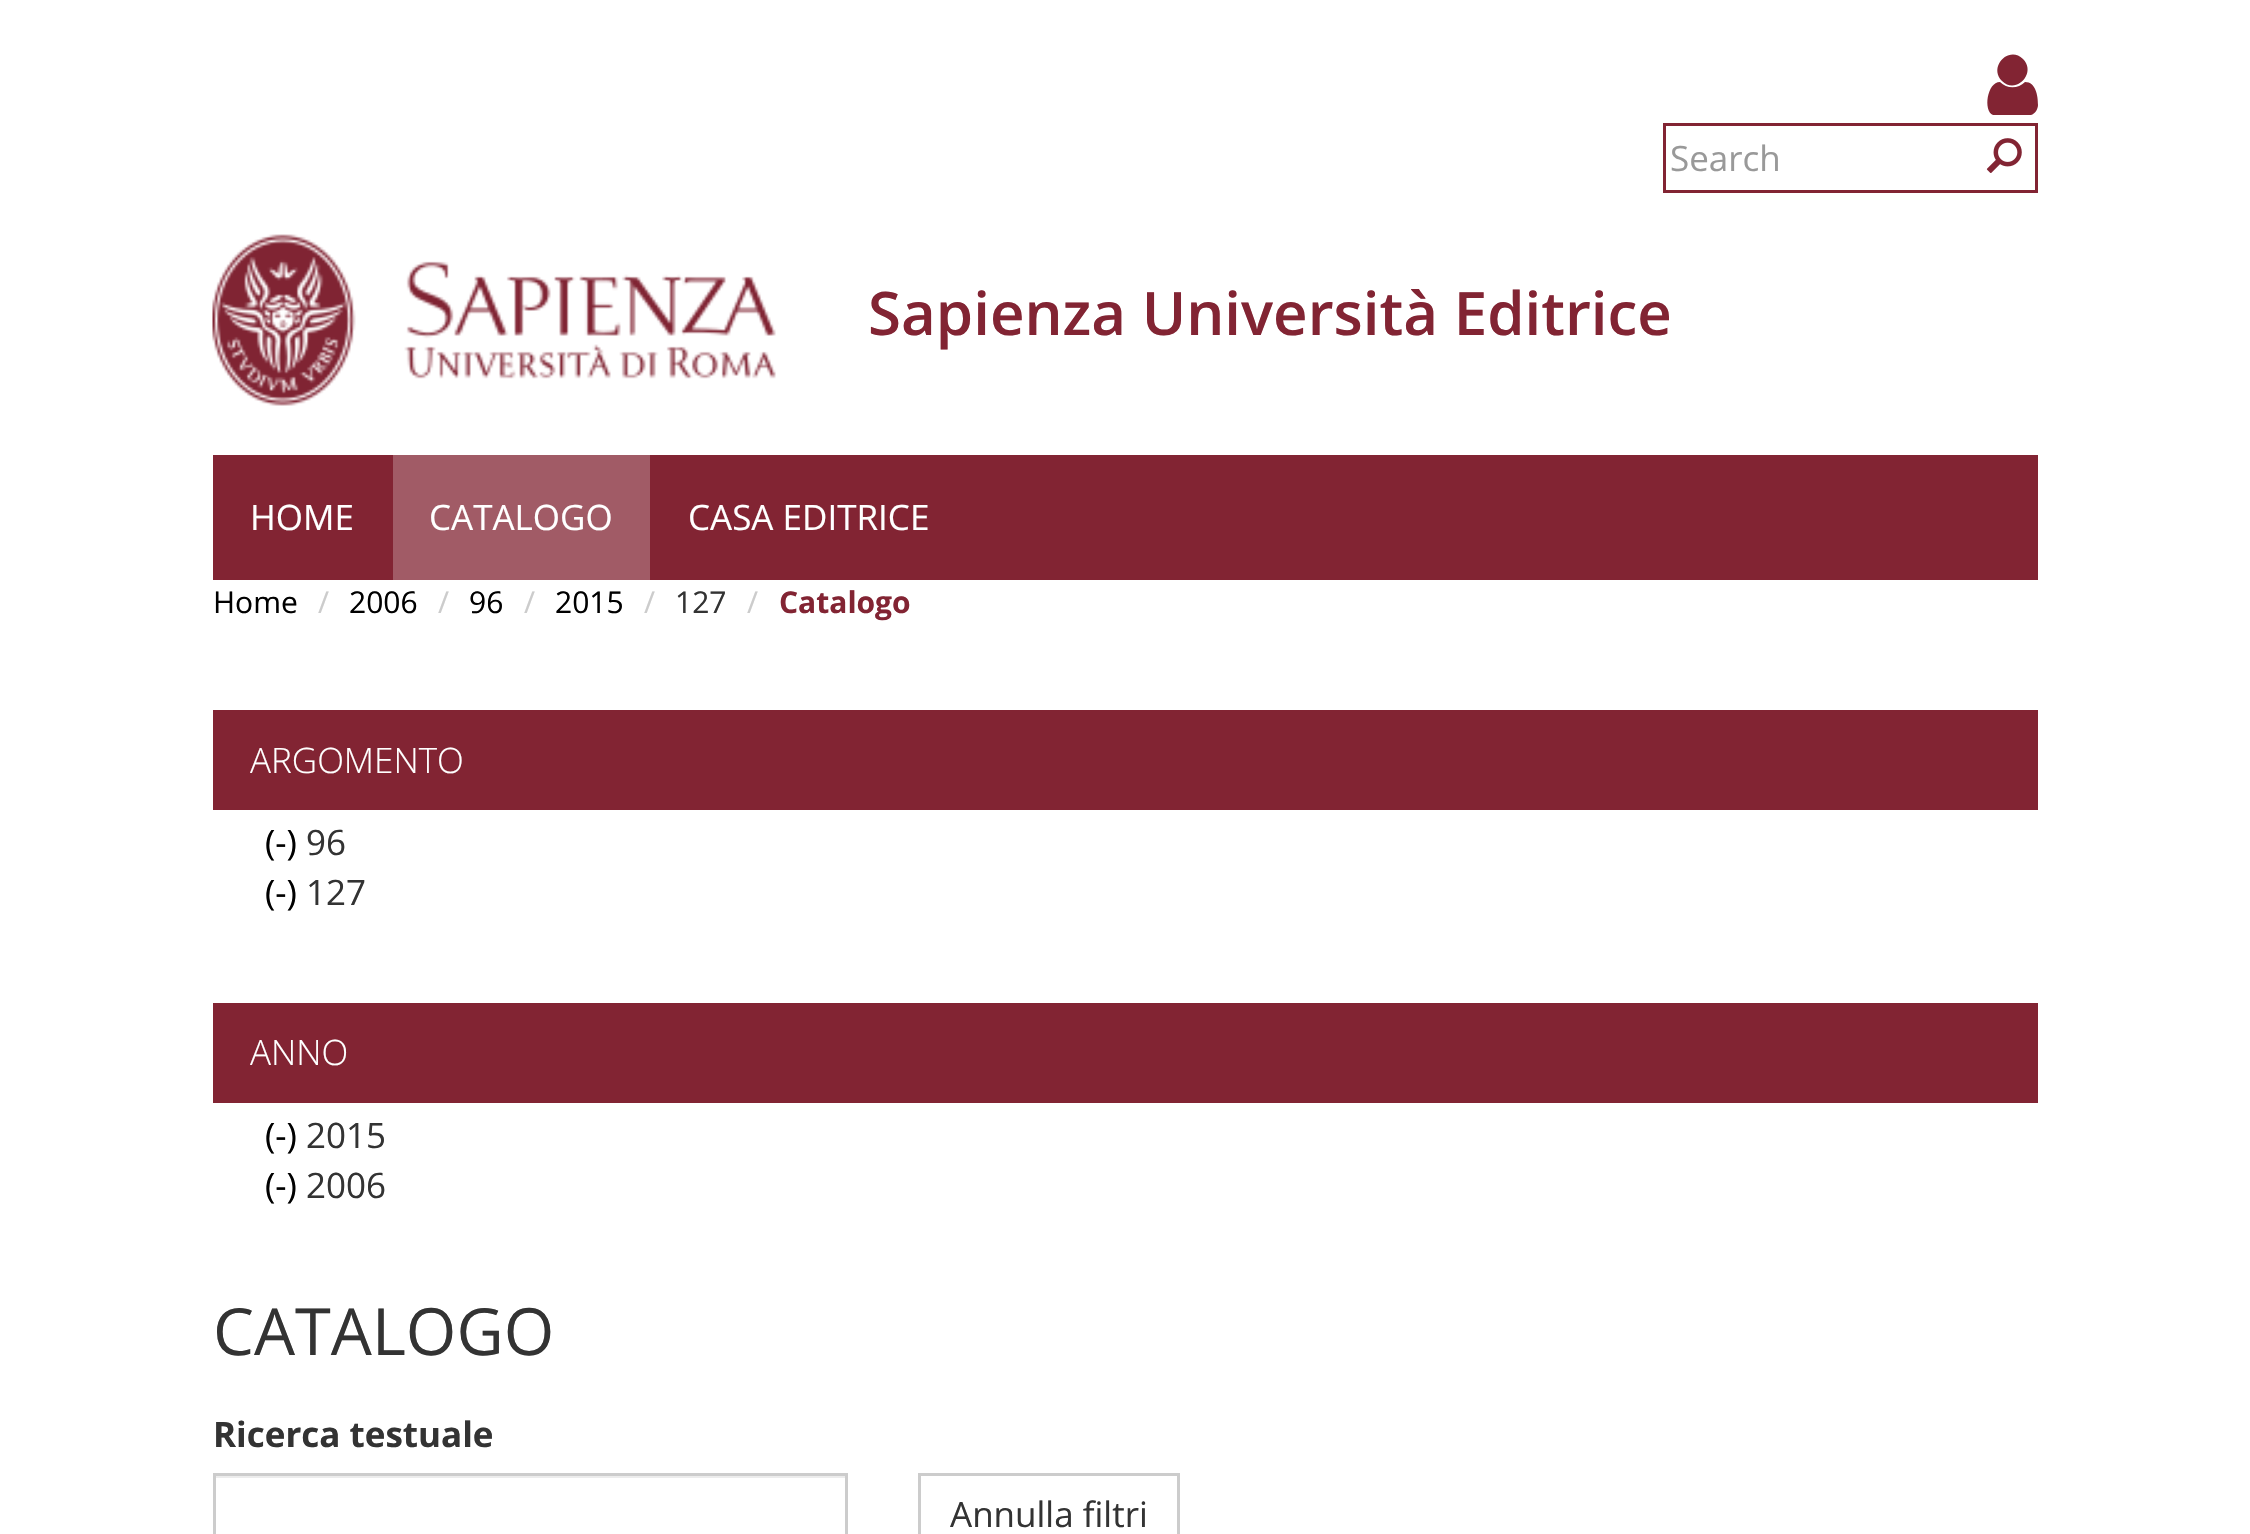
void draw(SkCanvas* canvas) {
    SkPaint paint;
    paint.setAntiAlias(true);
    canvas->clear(0xFFFFFFFF);
    paint.setColor(0xFF822433);
    canvas->drawPath(SkPathBuilder().moveTo(2038, 105).cubicTo(2038, 109, 2035, 114, 2031, 115).lineTo(2001, 115).lineTo(1993, 115).cubicTo(1983, 111, 1987, 82, 2000, 82).cubicTo(2007, 89, 2018, 89, 2025, 82).cubicTo(2036, 82, 2038, 96, 2038, 105).close().moveTo(2023, 59).cubicTo(2037, 73, 2016, 95, 2002, 81).cubicTo(1988, 67, 2009, 45, 2023, 59).close().detach(), paint);
    canvas->drawRect(SkRect::MakeXYWH(1663, 123, 375, 3), paint);
    canvas->drawRect(SkRect::MakeXYWH(2035, 123, 3, 70), paint);
    canvas->drawRect(SkRect::MakeXYWH(1663, 190, 375, 3), paint);
    canvas->drawImageRect(SkImages::DeferredFromEncodedData(SkData::MakeFromFileName("img1.png")), SkRect::MakeXYWH(1986, 138, 36, 35), SkSamplingOptions());
    canvas->drawRect(SkRect::MakeXYWH(1663, 123, 3, 70), paint);
    SkFont font1(fontMgr->matchFamilyStyle("Open Sans", SkFontStyle::Normal()), 35);
    font1.setSubpixel(true);
    paint.setColor(0xFF999999);
    canvas->drawString("Search", 1670, 171, font1, paint);
    canvas->drawImageRect(SkImages::DeferredFromEncodedData(SkData::MakeFromFileName("img2.png")), SkRect::MakeXYWH(212, 234, 564, 172), SkSamplingOptions());
    SkFont font2(fontMgr->matchFamilyStyle("Open Sans", SkFontStyle(600, SkFontStyle::kNormal_Width, SkFontStyle::kUpright_Slant)), 60);
    font2.setSubpixel(true);
    paint.setColor(0xFF822433);
    canvas->drawString("Sapienza Università Editrice", 868, 335, font2, paint);
    canvas->drawRect(SkRect::MakeXYWH(213, 455, 1825, 125), paint);
    paint.setColor(0xFFFFFFFF);
    canvas->drawString("HOME", 250, 530, font1, paint);
    paint.setColor(0xFFA15B66);
    canvas->drawRect(SkRect::MakeXYWH(393, 455, 257, 125), paint);
    paint.setColor(0xFFFFFFFF);
    canvas->drawString("CATALOGO", 429, 530, font1, paint);
    canvas->drawString("CASA EDITRICE", 688, 530, font1, paint);
    SkFont font3(fontMgr->matchFamilyStyle("Open Sans", SkFontStyle::Normal()), 30);
    font3.setSubpixel(true);
    paint.setColor(0xFF000000);
    canvas->drawString("Home", 213, 613, font3, paint);
    paint.setColor(0xFFCCCCCC);
    canvas->drawString("/", 318, 613, font3, paint);
    paint.setColor(0xFF000000);
    canvas->drawString("2006", 349, 613, font3, paint);
    paint.setColor(0xFFCCCCCC);
    canvas->drawString("/", 438, 613, font3, paint);
    paint.setColor(0xFF000000);
    canvas->drawString("96", 469, 613, font3, paint);
    paint.setColor(0xFFCCCCCC);
    canvas->drawString("/", 524, 613, font3, paint);
    paint.setColor(0xFF000000);
    canvas->drawString("2015", 555, 613, font3, paint);
    paint.setColor(0xFFCCCCCC);
    canvas->drawString("/", 644, 613, font3, paint);
    paint.setColor(0xFF333333);
    canvas->drawString("127", 675, 613, font3, paint);
    paint.setColor(0xFFCCCCCC);
    canvas->drawString("/", 747, 613, font3, paint);
    SkFont font4(fontMgr->matchFamilyStyle("Open Sans", SkFontStyle::Bold()), 30);
    font4.setSubpixel(true);
    paint.setColor(0xFF822433);
    canvas->drawString("Catalogo", 779, 613, font4, paint);
    canvas->drawRect(SkRect::MakeXYWH(213, 710, 1825, 100), paint);
    SkFont font5(fontMgr->matchFamilyStyle("Open Sans", SkFontStyle(300, SkFontStyle::kNormal_Width, SkFontStyle::kUpright_Slant)), 35);
    font5.setSubpixel(true);
    paint.setColor(0xFFFFFFFF);
    canvas->drawString("ARGOMENTO", 250, 773, font5, paint);
    paint.setColor(0xFF000000);
    canvas->drawString("(-)", 265, 855, font1, paint);
    paint.setColor(0xFF333333);
    canvas->drawString("96", 306, 855, font1, paint);
    paint.setColor(0xFF000000);
    canvas->drawString("(-)", 265, 905, font1, paint);
    paint.setColor(0xFF333333);
    canvas->drawString("127", 306, 905, font1, paint);
    paint.setColor(0xFF822433);
    canvas->drawRect(SkRect::MakeXYWH(213, 1003, 1825, 100), paint);
    paint.setColor(0xFFFFFFFF);
    canvas->drawString("ANNO", 250, 1065, font5, paint);
    paint.setColor(0xFF000000);
    canvas->drawString("(-)", 265, 1148, font1, paint);
    paint.setColor(0xFF333333);
    canvas->drawString("2015", 306, 1148, font1, paint);
    paint.setColor(0xFF000000);
    canvas->drawString("(-)", 265, 1198, font1, paint);
    paint.setColor(0xFF333333);
    canvas->drawString("2006", 306, 1198, font1, paint);
    SkFont font6(fontMgr->matchFamilyStyle("Open Sans", SkFontStyle::Normal()), 65);
    font6.setSubpixel(true);
    canvas->drawString("CATALOGO", 213, 1355, font6, paint);
    SkFont font7(fontMgr->matchFamilyStyle("Open Sans", SkFontStyle::Bold()), 35);
    font7.setSubpixel(true);
    canvas->drawString("Ricerca testuale", 213, 1447, font7, paint);
    paint.setColor(0xFFECECEC);
    canvas->drawRect(SkRect::MakeXYWH(215, 1476, 630, 2), paint);
    paint.setStyle(SkPaint::kStroke_Style);
    paint.setStrokeWidth(3);
    paint.setColor(0xFFCCCCCC);
    canvas->drawRect(SkRect::MakeXYWH(214.5f, 1474.5f, 632, 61), paint);
    canvas->drawRect(SkRect::MakeXYWH(919.5f, 1474.5f, 259, 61), paint);
    paint.setStyle(SkPaint::kFill_Style);
    paint.setColor(0xFF333333);
    canvas->drawString("Annulla filtri", 950, 1527, font1, paint);
}
